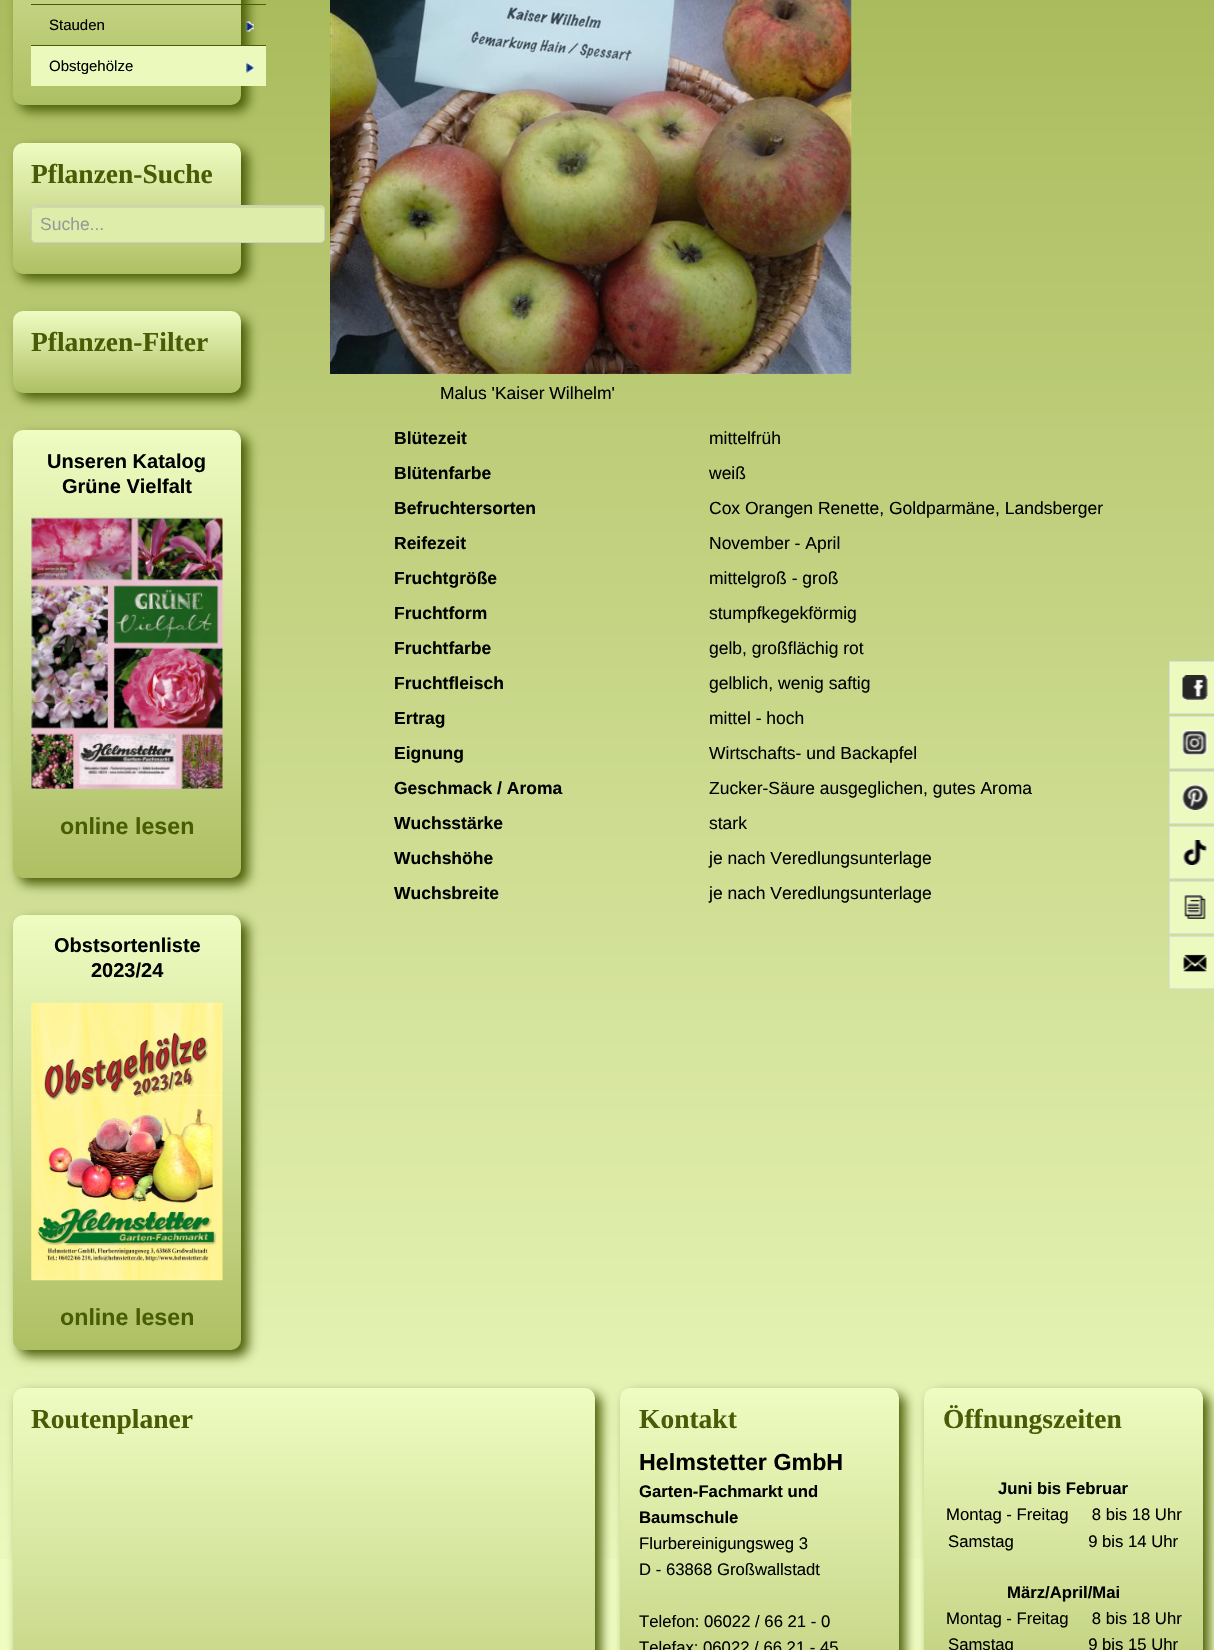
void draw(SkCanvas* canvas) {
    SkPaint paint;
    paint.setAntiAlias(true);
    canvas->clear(0xFFEFFCC2);
    canvas->drawImageRect(SkImages::DeferredFromEncodedData(SkData::MakeFromFileName("img1.png")), SkRect::MakeXYWH(0, 0, 1214, 1559), SkSamplingOptions());
    paint.setColor(0xFF495C05);
    paint.setMaskFilter(SkMaskFilter::MakeBlur(kNormal_SkBlurStyle, 6));
    canvas->drawRoundRect(SkRect::MakeXYWH(19, -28, 229, 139), 10, 10, paint);
    paint.setMaskFilter(nullptr);
    {
        const SkColor colors[] = {0xFFEFFCC2, 0xFFAEBF63};
        const float stops[] = {0, 1};
        const SkPoint ends[] = {{127, -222}, {127, 105}};
        paint.setShader(SkGradientShader::MakeLinear(ends, colors, stops, 2, SkTileMode::kClamp));
        paint.setAlpha(255);
    }
    canvas->drawRoundRect(SkRect::MakeXYWH(13, -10, 228, 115), 10, 10, paint);
    paint.setShader(nullptr);
    paint.setColor(0xFF495C05);
    canvas->drawRect(SkRect::MakeXYWH(31, 4, 235, 1), paint);
    canvas->drawRect(SkRect::MakeXYWH(31, 45, 235, 1), paint);
    SkFont font1(fontMgr->matchFamilyStyle("Liberation Sans", SkFontStyle::Normal()), 15);
    font1.setSubpixel(true);
    paint.setColor(0xFF000000);
    canvas->drawString("Stauden", 49, 30, font1, paint);
    canvas->drawImageRect(SkImages::DeferredFromEncodedData(SkData::MakeFromFileName("img2.png")), SkRect::MakeXYWH(246, 21, 8, 11), SkSamplingOptions());
    paint.setColor(0xFFECF9BD);
    canvas->drawRect(SkRect::MakeXYWH(31, 46, 235, 40), paint);
    paint.setColor(0xFF000000);
    canvas->drawString("Obstgehölze", 49, 71, font1, paint);
    canvas->drawImageRect(SkImages::DeferredFromEncodedData(SkData::MakeFromFileName("img3.png")), SkRect::MakeXYWH(246, 62, 8, 11), SkSamplingOptions());
    paint.setColor(0xFF495C05);
    paint.setMaskFilter(SkMaskFilter::MakeBlur(kNormal_SkBlurStyle, 6));
    canvas->drawRoundRect(SkRect::MakeXYWH(19, 149, 229, 131), 10, 10, paint);
    paint.setMaskFilter(nullptr);
    {
        const SkColor colors[] = {0xFFEFFCC2, 0xFFAEBF63};
        const float stops[] = {0, 1};
        const SkPoint ends[] = {{127, 142}, {127, 274}};
        paint.setShader(SkGradientShader::MakeLinear(ends, colors, stops, 2, SkTileMode::kClamp));
        paint.setAlpha(255);
    }
    canvas->drawRoundRect(SkRect::MakeXYWH(13, 143, 228, 131), 10, 10, paint);
    SkFont font2(fontMgr->matchFamilyStyle("Liberation Serif", SkFontStyle::Bold()), 27.5f);
    font2.setSubpixel(true);
    paint.setShader(nullptr);
    paint.setColor(0xFF495C05);
    canvas->drawString("Pflanzen-Suche", 31, 183, font2, paint);
    paint.setColor(0xFFDFEDAA);
    canvas->drawRoundRect(SkRect::MakeXYWH(31, 205, 294, 38), 5, 5, paint);
    paint.setColor(0xFFCEDB9D);
    canvas->drawPath(SkPathBuilder().moveTo(36, 208).lineTo(320, 208).cubicTo(322, 208, 324, 209, 324, 211).lineTo(324, 210).cubicTo(324, 208, 322, 206, 320, 206).lineTo(37, 206).cubicTo(35, 206, 34, 207, 33, 209).close().detach(), paint);
    paint.setStyle(SkPaint::kStroke_Style);
    paint.setStrokeWidth(1);
    paint.setColor(0xFFCCCCCC);
    canvas->drawRoundRect(SkRect::MakeXYWH(31.5f, 205.5f, 293, 37), 4.5f, 4.5f, paint);
    SkFont font3(fontMgr->matchFamilyStyle("Liberation Sans", SkFontStyle::Normal()), 17.5f);
    font3.setSubpixel(true);
    paint.setStyle(SkPaint::kFill_Style);
    paint.setColor(0xFF999999);
    canvas->drawString("Suche...", 40, 230, font3, paint);
    paint.setColor(0xFF495C05);
    paint.setMaskFilter(SkMaskFilter::MakeBlur(kNormal_SkBlurStyle, 6));
    canvas->drawRoundRect(SkRect::MakeXYWH(19, 318, 229, 81), 10, 10, paint);
    paint.setMaskFilter(nullptr);
    {
        const SkColor colors[] = {0xFFEFFCC2, 0xFFAEBF63};
        const float stops[] = {0, 1};
        const SkPoint ends[] = {{127, 311}, {127, 393}};
        paint.setShader(SkGradientShader::MakeLinear(ends, colors, stops, 2, SkTileMode::kClamp));
        paint.setAlpha(255);
    }
    canvas->drawRoundRect(SkRect::MakeXYWH(13, 311, 228, 82), 10, 10, paint);
    paint.setShader(nullptr);
    paint.setColor(0xFF495C05);
    canvas->drawString("Pflanzen-Filter", 31, 351, font2, paint);
    paint.setMaskFilter(SkMaskFilter::MakeBlur(kNormal_SkBlurStyle, 6));
    canvas->drawRoundRect(SkRect::MakeXYWH(19, 436, 229, 448), 10, 10, paint);
    paint.setMaskFilter(nullptr);
    {
        const SkColor colors[] = {0xFFEFFCC2, 0xFFAEBF63};
        const float stops[] = {0, 1};
        const SkPoint ends[] = {{127, 430}, {127, 878}};
        paint.setShader(SkGradientShader::MakeLinear(ends, colors, stops, 2, SkTileMode::kClamp));
        paint.setAlpha(255);
    }
    canvas->drawRoundRect(SkRect::MakeXYWH(13, 430, 228, 448), 10, 10, paint);
    SkFont font4(fontMgr->matchFamilyStyle("Liberation Sans", SkFontStyle::Bold()), 20);
    font4.setSubpixel(true);
    paint.setShader(nullptr);
    paint.setColor(0xFF000000);
    canvas->drawString("Unseren Katalog", 47, 468, font4, paint);
    canvas->drawString("Grüne Vielfalt", 62, 493, font4, paint);
    canvas->drawImageRect(SkImages::DeferredFromEncodedData(SkData::MakeFromFileName("img4.png")), SkRect::MakeXYWH(31, 517, 192, 272), SkSamplingOptions());
    SkFont font5(fontMgr->matchFamilyStyle("Liberation Sans", SkFontStyle::Bold()), 23.25f);
    font5.setSubpixel(true);
    paint.setColor(0xFF495C05);
    canvas->drawString("online lesen", 60, 834, font5, paint);
    paint.setMaskFilter(SkMaskFilter::MakeBlur(kNormal_SkBlurStyle, 6));
    canvas->drawRoundRect(SkRect::MakeXYWH(19, 921, 229, 435), 10, 10, paint);
    paint.setMaskFilter(nullptr);
    {
        const SkColor colors[] = {0xFFEFFCC2, 0xFFAEBF63};
        const float stops[] = {0, 1};
        const SkPoint ends[] = {{127, 915}, {127, 1350}};
        paint.setShader(SkGradientShader::MakeLinear(ends, colors, stops, 2, SkTileMode::kClamp));
        paint.setAlpha(255);
    }
    canvas->drawRoundRect(SkRect::MakeXYWH(13, 915, 228, 435), 10, 10, paint);
    paint.setShader(nullptr);
    paint.setColor(0xFF000000);
    canvas->drawString("Obstsortenliste", 54, 952, font4, paint);
    canvas->drawString("2023/24", 91, 977, font4, paint);
    canvas->drawImageRect(SkImages::DeferredFromEncodedData(SkData::MakeFromFileName("img5.png")), SkRect::MakeXYWH(31, 1002, 192, 279), SkSamplingOptions());
    paint.setColor(0xFF495C05);
    canvas->drawString("online lesen", 60, 1325, font5, paint);
    canvas->drawImageRect(SkImages::DeferredFromEncodedData(SkData::MakeFromFileName("img6.png")), SkRect::MakeXYWH(330, 0, 522, 374), SkSamplingOptions());
    paint.setColor(0xFF000000);
    canvas->drawString("Malus 'Kaiser Wilhelm'", 440, 399, font3, paint);
    SkFont font6(fontMgr->matchFamilyStyle("Liberation Sans", SkFontStyle::Bold()), 17.5f);
    font6.setSubpixel(true);
    canvas->drawString("Blütezeit", 394, 444, font6, paint);
    canvas->drawString("mittelfrüh", 709, 444, font3, paint);
    canvas->drawString("Blütenfarbe", 394, 479, font6, paint);
    canvas->drawString("weiß", 709, 479, font3, paint);
    canvas->drawString("Befruchtersorten", 394, 514, font6, paint);
    canvas->drawString("Cox Orangen Renette, Goldparmäne, Landsberger", 709, 514, font3, paint);
    canvas->drawString("Reifezeit", 394, 549, font6, paint);
    canvas->drawString("November - April", 709, 549, font3, paint);
    canvas->drawString("Fruchtgröße", 394, 584, font6, paint);
    canvas->drawString("mittelgroß - groß", 709, 584, font3, paint);
    canvas->drawString("Fruchtform", 394, 619, font6, paint);
    canvas->drawString("stumpfkegekförmig", 709, 619, font3, paint);
    canvas->drawString("Fruchtfarbe", 394, 654, font6, paint);
    canvas->drawString("gelb, großflächig rot", 709, 654, font3, paint);
    canvas->drawString("Fruchtfleisch", 394, 689, font6, paint);
    canvas->drawString("gelblich, wenig saftig", 709, 689, font3, paint);
    canvas->drawString("Ertrag", 394, 724, font6, paint);
    canvas->drawString("mittel - hoch", 709, 724, font3, paint);
    canvas->drawString("Eignung", 394, 759, font6, paint);
    canvas->drawString("Wirtschafts- und Backapfel", 709, 759, font3, paint);
    canvas->drawString("Geschmack / Aroma", 394, 794, font6, paint);
    canvas->drawString("Zucker-Säure ausgeglichen, gutes Aroma", 709, 794, font3, paint);
    canvas->drawString("Wuchsstärke", 394, 829, font6, paint);
    canvas->drawString("stark", 709, 829, font3, paint);
    canvas->drawString("Wuchshöhe", 394, 864, font6, paint);
    canvas->drawString("je nach Veredlungsunterlage", 709, 864, font3, paint);
    canvas->drawString("Wuchsbreite", 394, 899, font6, paint);
    canvas->drawString("je nach Veredlungsunterlage", 709, 899, font3, paint);
    paint.setColor(0xFF495C05);
    paint.setMaskFilter(SkMaskFilter::MakeBlur(kNormal_SkBlurStyle, 6));
    canvas->drawRoundRect(SkRect::MakeXYWH(19, 1394, 582, 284), 10, 10, paint);
    paint.setMaskFilter(nullptr);
    {
        const SkColor colors[] = {0xFFEFFCC2, 0xFFAEBF63};
        const float stops[] = {0, 1};
        const SkPoint ends[] = {{304, 1388}, {304, 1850}};
        paint.setShader(SkGradientShader::MakeLinear(ends, colors, stops, 2, SkTileMode::kClamp));
        paint.setAlpha(255);
    }
    canvas->drawRoundRect(SkRect::MakeXYWH(13, 1388, 582, 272), 10, 10, paint);
    paint.setShader(nullptr);
    paint.setColor(0xFF495C05);
    canvas->drawString("Routenplaner", 31, 1428, font2, paint);
    paint.setMaskFilter(SkMaskFilter::MakeBlur(kNormal_SkBlurStyle, 6));
    canvas->drawRoundRect(SkRect::MakeXYWH(626, 1394, 279, 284), 10, 10, paint);
    paint.setMaskFilter(nullptr);
    {
        const SkColor colors[] = {0xFFEFFCC2, 0xFFAEBF63};
        const float stops[] = {0, 1};
        const SkPoint ends[] = {{759, 1388}, {759, 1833}};
        paint.setShader(SkGradientShader::MakeLinear(ends, colors, stops, 2, SkTileMode::kClamp));
        paint.setAlpha(255);
    }
    canvas->drawRoundRect(SkRect::MakeXYWH(620, 1388, 279, 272), 10, 10, paint);
    paint.setShader(nullptr);
    paint.setColor(0xFF495C05);
    canvas->drawString("Kontakt", 639, 1428, font2, paint);
    paint.setColor(0xFF000000);
    canvas->drawString("Helmstetter GmbH", 639, 1470, font5, paint);
    SkFont font7(fontMgr->matchFamilyStyle("Liberation Sans", SkFontStyle::Bold()), 16.7f);
    font7.setSubpixel(true);
    canvas->drawString("Garten-Fachmarkt und", 639, 1497, font7, paint);
    canvas->drawString("Baumschule", 639, 1523, font7, paint);
    SkFont font8(fontMgr->matchFamilyStyle("Liberation Sans", SkFontStyle::Normal()), 16.7f);
    font8.setSubpixel(true);
    canvas->drawString("Flurbereinigungsweg 3", 639, 1549, font8, paint);
    canvas->drawString("D - 63868 Großwallstadt", 639, 1575, font8, paint);
    canvas->drawString("Telefon: 06022 / 66 21 - 0", 639, 1627, font8, paint);
    canvas->drawString("Telefax: 06022 / 66 21 - 45", 639, 1653, font8, paint);
    paint.setColor(0xFF495C05);
    paint.setMaskFilter(SkMaskFilter::MakeBlur(kNormal_SkBlurStyle, 6));
    canvas->drawRoundRect(SkRect::MakeXYWH(930, 1394, 279, 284), 10, 10, paint);
    paint.setMaskFilter(nullptr);
    {
        const SkColor colors[] = {0xFFEFFCC2, 0xFFAEBF63};
        const float stops[] = {0, 1};
        const SkPoint ends[] = {{1063, 1388}, {1063, 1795}};
        paint.setShader(SkGradientShader::MakeLinear(ends, colors, stops, 2, SkTileMode::kClamp));
        paint.setAlpha(255);
    }
    canvas->drawRoundRect(SkRect::MakeXYWH(924, 1388, 279, 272), 10, 10, paint);
    paint.setShader(nullptr);
    paint.setColor(0xFF495C05);
    canvas->drawString("Öffnungszeiten", 943, 1428, font2, paint);
    paint.setColor(0xFF000000);
    canvas->drawString("Juni bis Februar", 998, 1494, font7, paint);
    canvas->drawString("Montag - Freitag     8 bis 18 Uhr", 946, 1520, font8, paint);
    canvas->drawString("Samstag                9 bis 14 Uhr", 948, 1547, font8, paint);
    canvas->drawString("März/April/Mai", 1007, 1598, font7, paint);
    canvas->drawString("Montag - Freitag     8 bis 18 Uhr", 946, 1624, font8, paint);
    canvas->drawString("Samstag                9 bis 15 Uhr", 948, 1650, font8, paint);
    paint.setColor(0xFFEDFABF);
    canvas->drawRect(SkRect::MakeXYWH(1169.5f, 661.5f, 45, 52), paint);
    paint.setStyle(SkPaint::kStroke_Style);
    paint.setColor(0xFFDDDDDD);
    canvas->drawRect(SkRect::MakeXYWH(1169.5f, 661.5f, 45, 52), paint);
    canvas->drawImageRect(SkImages::DeferredFromEncodedData(SkData::MakeFromFileName("img7.png")), SkRect::MakeXYWH(1182, 675, 26, 25), SkSamplingOptions());
    paint.setStyle(SkPaint::kFill_Style);
    paint.setColor(0xFFEDFABF);
    canvas->drawRect(SkRect::MakeXYWH(1169.5f, 716.5f, 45, 52), paint);
    paint.setStyle(SkPaint::kStroke_Style);
    paint.setColor(0xFFDDDDDD);
    canvas->drawRect(SkRect::MakeXYWH(1169.5f, 716.5f, 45, 52), paint);
    canvas->drawImageRect(SkImages::DeferredFromEncodedData(SkData::MakeFromFileName("img8.png")), SkRect::MakeXYWH(1182, 730, 26, 25), SkSamplingOptions());
    paint.setStyle(SkPaint::kFill_Style);
    paint.setColor(0xFFEDFABF);
    canvas->drawRect(SkRect::MakeXYWH(1169.5f, 771.5f, 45, 52), paint);
    paint.setStyle(SkPaint::kStroke_Style);
    paint.setColor(0xFFDDDDDD);
    canvas->drawRect(SkRect::MakeXYWH(1169.5f, 771.5f, 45, 52), paint);
    canvas->drawImageRect(SkImages::DeferredFromEncodedData(SkData::MakeFromFileName("img9.png")), SkRect::MakeXYWH(1182, 785, 26, 25), SkSamplingOptions());
    paint.setStyle(SkPaint::kFill_Style);
    paint.setColor(0xFFEDFABF);
    canvas->drawRect(SkRect::MakeXYWH(1169.5f, 826.5f, 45, 52), paint);
    paint.setStyle(SkPaint::kStroke_Style);
    paint.setColor(0xFFDDDDDD);
    canvas->drawRect(SkRect::MakeXYWH(1169.5f, 826.5f, 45, 52), paint);
    canvas->drawImageRect(SkImages::DeferredFromEncodedData(SkData::MakeFromFileName("img10.png")), SkRect::MakeXYWH(1183, 840, 24, 25), SkSamplingOptions());
    paint.setStyle(SkPaint::kFill_Style);
    paint.setColor(0xFFEDFABF);
    canvas->drawRect(SkRect::MakeXYWH(1169.5f, 881.5f, 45, 52), paint);
    paint.setStyle(SkPaint::kStroke_Style);
    paint.setColor(0xFFDDDDDD);
    canvas->drawRect(SkRect::MakeXYWH(1169.5f, 881.5f, 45, 52), paint);
    canvas->drawImageRect(SkImages::DeferredFromEncodedData(SkData::MakeFromFileName("img11.png")), SkRect::MakeXYWH(1184, 895, 22, 24), SkSamplingOptions());
    paint.setStyle(SkPaint::kFill_Style);
    paint.setColor(0xFFEDFABF);
    canvas->drawRect(SkRect::MakeXYWH(1169.5f, 936.5f, 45, 52), paint);
    paint.setStyle(SkPaint::kStroke_Style);
    paint.setColor(0xFFDDDDDD);
    canvas->drawRect(SkRect::MakeXYWH(1169.5f, 936.5f, 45, 52), paint);
    canvas->drawImageRect(SkImages::DeferredFromEncodedData(SkData::MakeFromFileName("img12.png")), SkRect::MakeXYWH(1183, 954, 24, 18), SkSamplingOptions());
}
